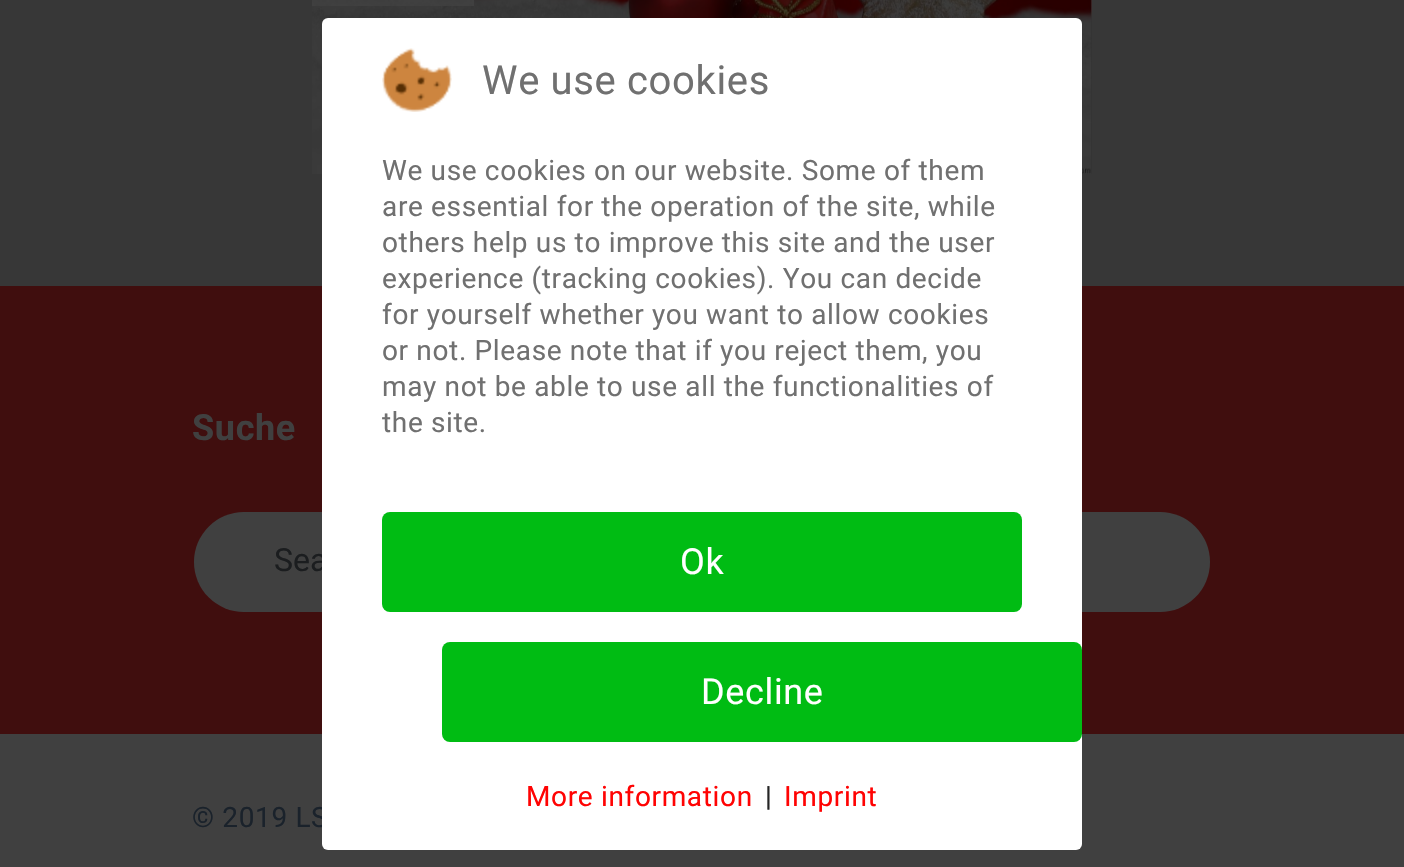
void draw(SkCanvas* canvas) {
    SkPaint paint;
    paint.setAntiAlias(true);
    auto spacedText = [&](const char* s, float x, float y, const SkFont& font, const SkPaint& ink, float letter, float word) {
        std::vector<SkGlyphID> glyphs(font.countText(s, strlen(s), SkTextEncoding::kUTF8));
        std::vector<float> xs(glyphs.size());
        font.textToGlyphs(s, strlen(s), SkTextEncoding::kUTF8, glyphs);
        font.getXPos(glyphs, xs, x);
        float extra = 0;
        for (size_t i = 0; i < glyphs.size(); i++) {
            xs[i] += extra;
            extra += letter + word * (glyphs[i] == font.unicharToGlyph(' '));
        }
        canvas->drawTextBlob(SkTextBlob::MakeFromPosHGlyphs(glyphs, xs, y, font), 0, 0, ink);
    };
    canvas->clear(0xFF373737);
    canvas->drawImageRect(SkImages::DeferredFromEncodedData(SkData::MakeFromFileName("img1.png")), SkRect::MakeXYWH(312, 0, 780, 174), SkSamplingOptions());
    canvas->drawImageRect(SkImages::DeferredFromEncodedData(SkData::MakeFromFileName("img2.png")), SkRect::MakeXYWH(312, 0, 162, 6), SkSamplingOptions());
    paint.setColor(0xFF400E0E);
    canvas->drawRect(SkRect::MakeXYWH(0, 286, 1404, 448), paint);
    SkFont font1(fontMgr->matchFamilyStyle("Roboto", SkFontStyle::Bold()), 36);
    font1.setSubpixel(true);
    paint.setColor(0xFF404040);
    spacedText("Suche", 192, 440, font1, paint, 0.65f, 0);
    canvas->drawRoundRect(SkRect::MakeXYWH(194, 512, 1016, 100), 50, 50, paint);
    SkFont font2(fontMgr->matchFamilyStyle("Roboto", SkFontStyle::Normal()), 32);
    font2.setSubpixel(true);
    paint.setColor(0xFF1B1D1F);
    canvas->drawString("Sea", 274, 571, font2, paint);
    paint.setColor(0xFF404040);
    canvas->drawRect(SkRect::MakeXYWH(0, 734, 1404, 133), paint);
    SkFont font3(fontMgr->matchFamilyStyle("Roboto", SkFontStyle::Normal()), 28);
    font3.setSubpixel(true);
    paint.setColor(0xFF1A222B);
    spacedText("© 2019 LS", 192, 827, font3, paint, 0.65f, 0);
    paint.setColor(0xFFFFFFFF);
    canvas->drawRoundRect(SkRect::MakeXYWH(322, 18, 760, 832), 6, 6, paint);
    canvas->drawImageRect(SkImages::DeferredFromEncodedData(SkData::MakeFromFileName("img3.png")), SkRect::MakeXYWH(382, 48, 70, 64), SkSamplingOptions());
    SkFont font4(fontMgr->matchFamilyStyle("Roboto", SkFontStyle::Normal()), 40);
    font4.setSubpixel(true);
    paint.setColor(0xFF707070);
    spacedText("We use cookies", 482, 94, font4, paint, 0.65f, 0);
    spacedText("We use cookies on our website. Some of them", 382, 180, font3, paint, 0.65f, 0);
    spacedText("are essential for the operation of the site, while", 382, 216, font3, paint, 0.65f, 0);
    spacedText("others help us to improve this site and the user", 382, 252, font3, paint, 0.65f, 0);
    spacedText("experience (tracking cookies). You can decide", 382, 288, font3, paint, 0.65f, 0);
    spacedText("for yourself whether you want to allow cookies", 382, 324, font3, paint, 0.65f, 0);
    spacedText("or not. Please note that if you reject them, you", 382, 360, font3, paint, 0.65f, 0);
    spacedText("may not be able to use all the functionalities of", 382, 396, font3, paint, 0.65f, 0);
    spacedText("the site.", 382, 432, font3, paint, 0.65f, 0);
    paint.setColor(0xFF00BC13);
    canvas->drawRoundRect(SkRect::MakeXYWH(382, 512, 640, 100), 8, 8, paint);
    SkFont font5(fontMgr->matchFamilyStyle("Roboto", SkFontStyle::Normal()), 36);
    font5.setSubpixel(true);
    paint.setColor(0xFFFFFFFF);
    spacedText("Ok", 680, 574, font5, paint, 0.65f, 0);
    paint.setColor(0xFF00BC13);
    canvas->drawRoundRect(SkRect::MakeXYWH(442, 642, 640, 100), 8, 8, paint);
    paint.setColor(0xFFFFFFFF);
    spacedText("Decline", 701, 704, font5, paint, 0.65f, 0);
    paint.setColor(0xFFFF0303);
    spacedText("More information", 526, 806, font3, paint, 0.65f, 0);
    paint.setColor(0xFF252525);
    spacedText("|", 765, 806, font3, paint, 0.65f, 0);
    paint.setColor(0xFFFF0303);
    spacedText("Imprint", 784, 806, font3, paint, 0.65f, 0);
}
